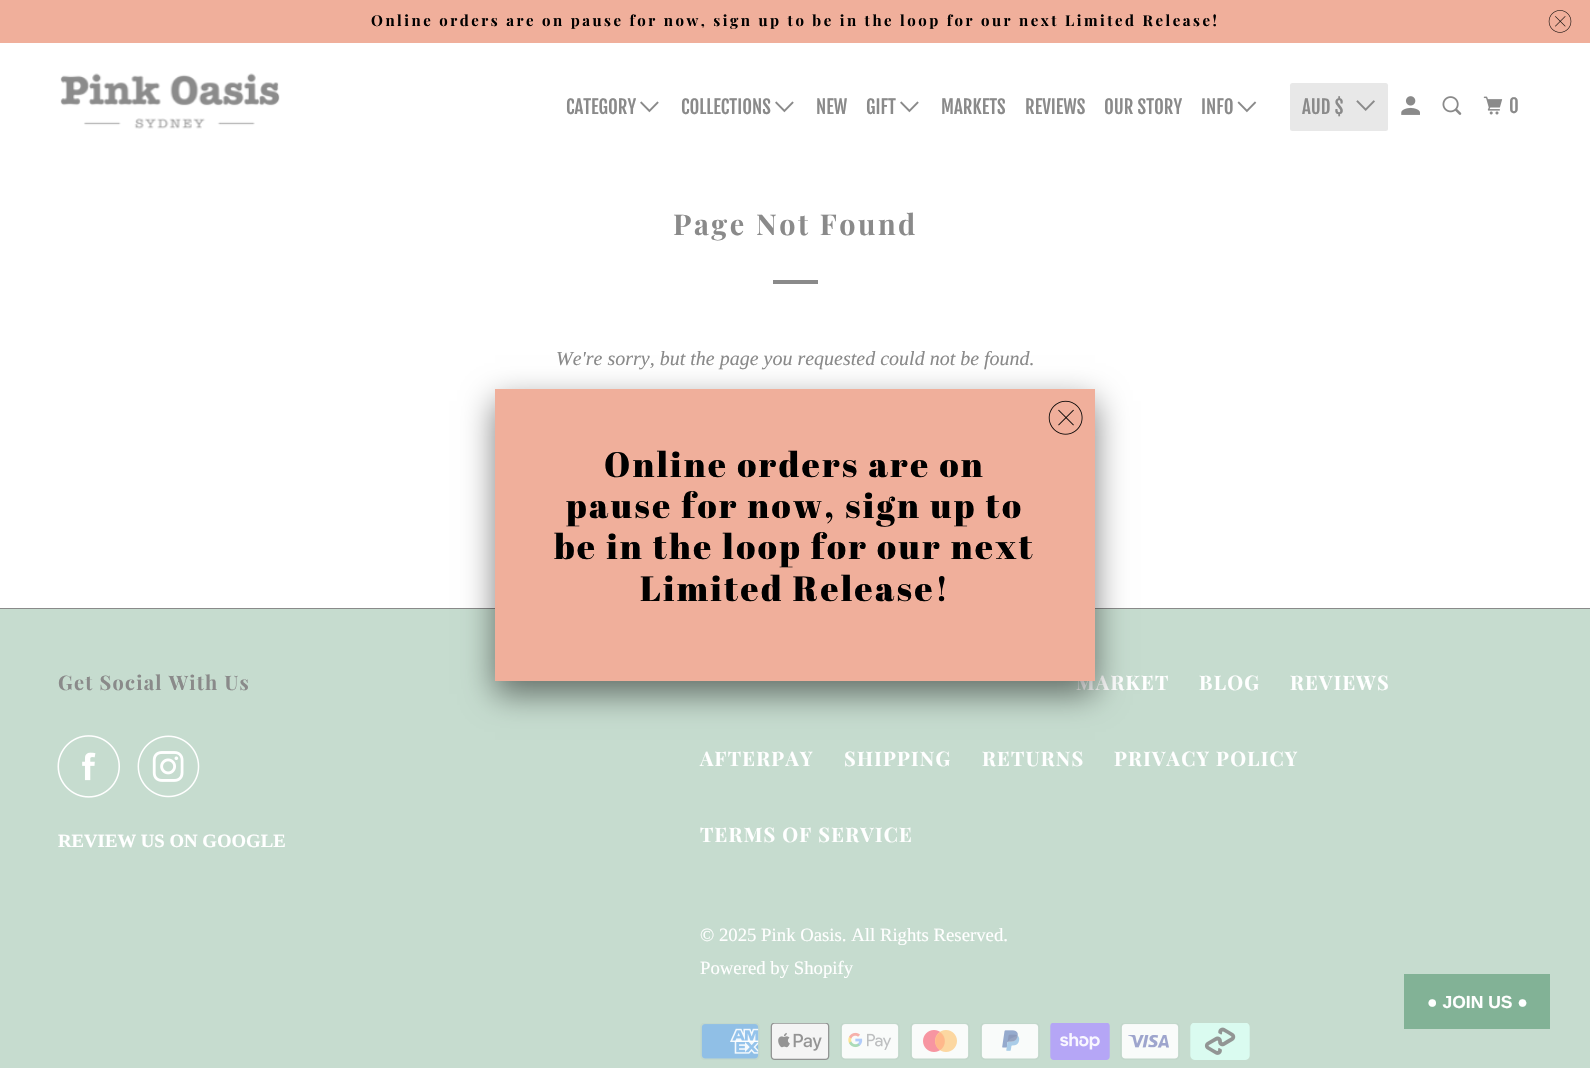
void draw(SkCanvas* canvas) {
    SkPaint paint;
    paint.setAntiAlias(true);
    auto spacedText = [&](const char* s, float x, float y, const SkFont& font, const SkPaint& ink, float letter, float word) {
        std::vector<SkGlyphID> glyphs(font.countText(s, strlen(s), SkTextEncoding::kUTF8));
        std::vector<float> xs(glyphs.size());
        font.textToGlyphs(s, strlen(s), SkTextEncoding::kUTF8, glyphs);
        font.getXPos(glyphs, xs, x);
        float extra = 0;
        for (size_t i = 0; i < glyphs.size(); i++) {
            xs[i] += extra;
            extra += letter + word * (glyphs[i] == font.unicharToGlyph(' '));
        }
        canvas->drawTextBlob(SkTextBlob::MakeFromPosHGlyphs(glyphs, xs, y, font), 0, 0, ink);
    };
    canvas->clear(0xFFFFFFFF);
    paint.setColor(0xFFF0AF9B);
    canvas->drawRect(SkRect::MakeXYWH(0, 0, 1590, 43), paint);
    SkFont font1(fontMgr->matchFamilyStyle("Playfair Display", SkFontStyle::Bold()), 15);
    font1.setSubpixel(true);
    paint.setColor(0xFF000000);
    spacedText("Online orders are on pause for now, sign up to be in the loop for our next Limited Release!", 371, 26, font1, paint, 2.5f, 0);
    canvas->drawImageRect(SkImages::DeferredFromEncodedData(SkData::MakeFromFileName("img1.png")), SkRect::MakeXYWH(1548, 10, 24, 23), SkSamplingOptions());
    canvas->drawImageRect(SkImages::DeferredFromEncodedData(SkData::MakeFromFileName("img2.png")), SkRect::MakeXYWH(60, 73, 220, 56), SkSamplingOptions());
    SkFont font2(fontMgr->matchFamilyStyle("Fjalla One", SkFontStyle::Normal()), 18.75f);
    font2.setSubpixel(true);
    paint.setColor(0xFF8A8A8A);
    canvas->drawString("CATEGORY", 566, 114, font2, paint);
    canvas->drawImageRect(SkImages::DeferredFromEncodedData(SkData::MakeFromFileName("img3.png")), SkRect::MakeXYWH(640, 101, 19, 12), SkSamplingOptions());
    canvas->drawString("COLLECTIONS", 681, 114, font2, paint);
    canvas->drawImageRect(SkImages::DeferredFromEncodedData(SkData::MakeFromFileName("img3.png")), SkRect::MakeXYWH(775, 101, 19, 12), SkSamplingOptions());
    canvas->drawString("NEW", 816, 114, font2, paint);
    canvas->drawString("GIFT", 866, 114, font2, paint);
    canvas->drawImageRect(SkImages::DeferredFromEncodedData(SkData::MakeFromFileName("img3.png")), SkRect::MakeXYWH(900, 101, 19, 12), SkSamplingOptions());
    canvas->drawString("MARKETS", 941, 114, font2, paint);
    canvas->drawString("REVIEWS", 1025, 114, font2, paint);
    canvas->drawString("OUR STORY", 1104, 114, font2, paint);
    canvas->drawString("INFO", 1201, 114, font2, paint);
    canvas->drawImageRect(SkImages::DeferredFromEncodedData(SkData::MakeFromFileName("img4.png")), SkRect::MakeXYWH(1237, 101, 20, 12), SkSamplingOptions());
    paint.setColor(0xFFE8E8E8);
    canvas->drawRoundRect(SkRect::MakeXYWH(1290, 83, 98, 48), 2.5f, 2.5f, paint);
    paint.setColor(0xFF8A8A8A);
    canvas->drawString("AUD $", 1302, 114, font2, paint);
    canvas->drawImageRect(SkImages::DeferredFromEncodedData(SkData::MakeFromFileName("img5.png")), SkRect::MakeXYWH(1356, 100, 19, 11), SkSamplingOptions());
    canvas->drawImageRect(SkImages::DeferredFromEncodedData(SkData::MakeFromFileName("img6.png")), SkRect::MakeXYWH(1401, 96, 19, 19), SkSamplingOptions());
    canvas->drawImageRect(SkImages::DeferredFromEncodedData(SkData::MakeFromFileName("img7.png")), SkRect::MakeXYWH(1442, 96, 20, 19), SkSamplingOptions());
    canvas->drawImageRect(SkImages::DeferredFromEncodedData(SkData::MakeFromFileName("img8.png")), SkRect::MakeXYWH(1483, 96, 20, 19), SkSamplingOptions());
    canvas->drawString("0", 1509, 113, font2, paint);
    SkFont font3(fontMgr->matchFamilyStyle("Playfair Display", SkFontStyle::Bold()), 28.75f);
    font3.setSubpixel(true);
    spacedText("Page Not Found", 673, 235, font3, paint, 2.5f, 0);
    canvas->drawRect(SkRect::MakeXYWH(773, 280, 45, 4), paint);
    SkFont font4(fontMgr->matchFamilyStyle("Liberation Serif", SkFontStyle::Italic()), 20);
    font4.setSubpixel(true);
    canvas->drawString("We're sorry, but the page you requested could not be found.", 556, 365, font4, paint);
    paint.setColor(0xFFC6DCCF);
    canvas->drawRect(SkRect::MakeXYWH(0, 609, 1590, 459), paint);
    paint.setColor(0xFF8A8A8A);
    canvas->drawRect(SkRect::MakeXYWH(0, 608, 1590, 1), paint);
    SkFont font5(fontMgr->matchFamilyStyle("Playfair Display", SkFontStyle::Bold()), 20);
    font5.setSubpixel(true);
    spacedText("Get Social With Us", 58, 690, font5, paint, 1.25f, 0);
    canvas->drawImageRect(SkImages::DeferredFromEncodedData(SkData::MakeFromFileName("img9.png")), SkRect::MakeXYWH(57, 735, 63, 63), SkSamplingOptions());
    canvas->drawImageRect(SkImages::DeferredFromEncodedData(SkData::MakeFromFileName("img10.png")), SkRect::MakeXYWH(137, 735, 63, 63), SkSamplingOptions());
    SkFont font6(fontMgr->matchFamilyStyle("Liberation Serif", SkFontStyle::Bold()), 18.75f);
    font6.setSubpixel(true);
    paint.setColor(0xFFFFFFFF);
    canvas->drawString("REVIEW US ON GOOGLE", 58, 847, font6, paint);
    spacedText("MARKET", 1076, 690, font5, paint, 1.25f, 0);
    spacedText("BLOG", 1199, 690, font5, paint, 1.25f, 0);
    spacedText("REVIEWS", 1290, 690, font5, paint, 1.25f, 0);
    spacedText("AFTERPAY", 700, 766, font5, paint, 1.25f, 0);
    spacedText("SHIPPING", 844, 766, font5, paint, 1.25f, 0);
    spacedText("RETURNS", 982, 766, font5, paint, 1.25f, 0);
    spacedText("PRIVACY POLICY", 1114, 766, font5, paint, 1.25f, 0);
    spacedText("TERMS OF SERVICE", 700, 842, font5, paint, 1.25f, 0);
    SkFont font7(fontMgr->matchFamilyStyle("Liberation Serif", SkFontStyle::Normal()), 18.75f);
    font7.setSubpixel(true);
    canvas->drawString("© 2025 Pink Oasis. All Rights Reserved.", 700, 941, font7, paint);
    canvas->drawString("Powered by Shopify", 700, 974, font7, paint);
    canvas->drawImageRect(SkImages::DeferredFromEncodedData(SkData::MakeFromFileName("img11.png")), SkRect::MakeXYWH(700, 1023, 60, 37), SkSamplingOptions());
    canvas->drawImageRect(SkImages::DeferredFromEncodedData(SkData::MakeFromFileName("img12.png")), SkRect::MakeXYWH(770, 1023, 60, 37), SkSamplingOptions());
    canvas->drawImageRect(SkImages::DeferredFromEncodedData(SkData::MakeFromFileName("img13.png")), SkRect::MakeXYWH(840, 1023, 60, 37), SkSamplingOptions());
    canvas->drawImageRect(SkImages::DeferredFromEncodedData(SkData::MakeFromFileName("img14.png")), SkRect::MakeXYWH(910, 1023, 60, 37), SkSamplingOptions());
    canvas->drawImageRect(SkImages::DeferredFromEncodedData(SkData::MakeFromFileName("img15.png")), SkRect::MakeXYWH(980, 1023, 60, 37), SkSamplingOptions());
    canvas->drawImageRect(SkImages::DeferredFromEncodedData(SkData::MakeFromFileName("img16.png")), SkRect::MakeXYWH(1050, 1023, 60, 37), SkSamplingOptions());
    canvas->drawImageRect(SkImages::DeferredFromEncodedData(SkData::MakeFromFileName("img17.png")), SkRect::MakeXYWH(1120, 1023, 60, 37), SkSamplingOptions());
    canvas->drawImageRect(SkImages::DeferredFromEncodedData(SkData::MakeFromFileName("img18.png")), SkRect::MakeXYWH(1190, 1023, 60, 37), SkSamplingOptions());
    paint.setColor(0x80000000);
    paint.setMaskFilter(SkMaskFilter::MakeBlur(kNormal_SkBlurStyle, 15.5f));
    canvas->drawRect(SkRect::MakeXYWH(495, 401, 600, 293), paint);
    paint.setMaskFilter(nullptr);
    paint.setColor(0xFFF0AF9B);
    canvas->drawRect(SkRect::MakeXYWH(495, 389, 600, 292), paint);
    canvas->drawImageRect(SkImages::DeferredFromEncodedData(SkData::MakeFromFileName("img19.png")), SkRect::MakeXYWH(1048, 400, 35, 35), SkSamplingOptions());
    SkFont font8(fontMgr->matchFamilyStyle("Abril Fatface", SkFontStyle::Normal()), 35);
    font8.setSubpixel(true);
    paint.setColor(0xFF000000);
    spacedText("Online orders are on", 604, 477, font8, paint, 2.5f, 0);
    spacedText("pause for now, sign up to", 566, 518, font8, paint, 2.5f, 0);
    spacedText("be in the loop for our next", 554, 559, font8, paint, 2.5f, 0);
    spacedText("Limited Release!", 640, 601, font8, paint, 2.5f, 0);
    paint.setColor(0xFF82B296);
    canvas->drawRect(SkRect::MakeXYWH(1404, 974, 146, 55), paint);
    SkFont font9(fontMgr->matchFamilyStyle("Liberation Sans", SkFontStyle::Bold()), 17.5f);
    font9.setSubpixel(true);
    paint.setColor(0xFFFFFFFF);
    canvas->drawString("● JOIN US ●", 1427, 1008, font9, paint);
}
